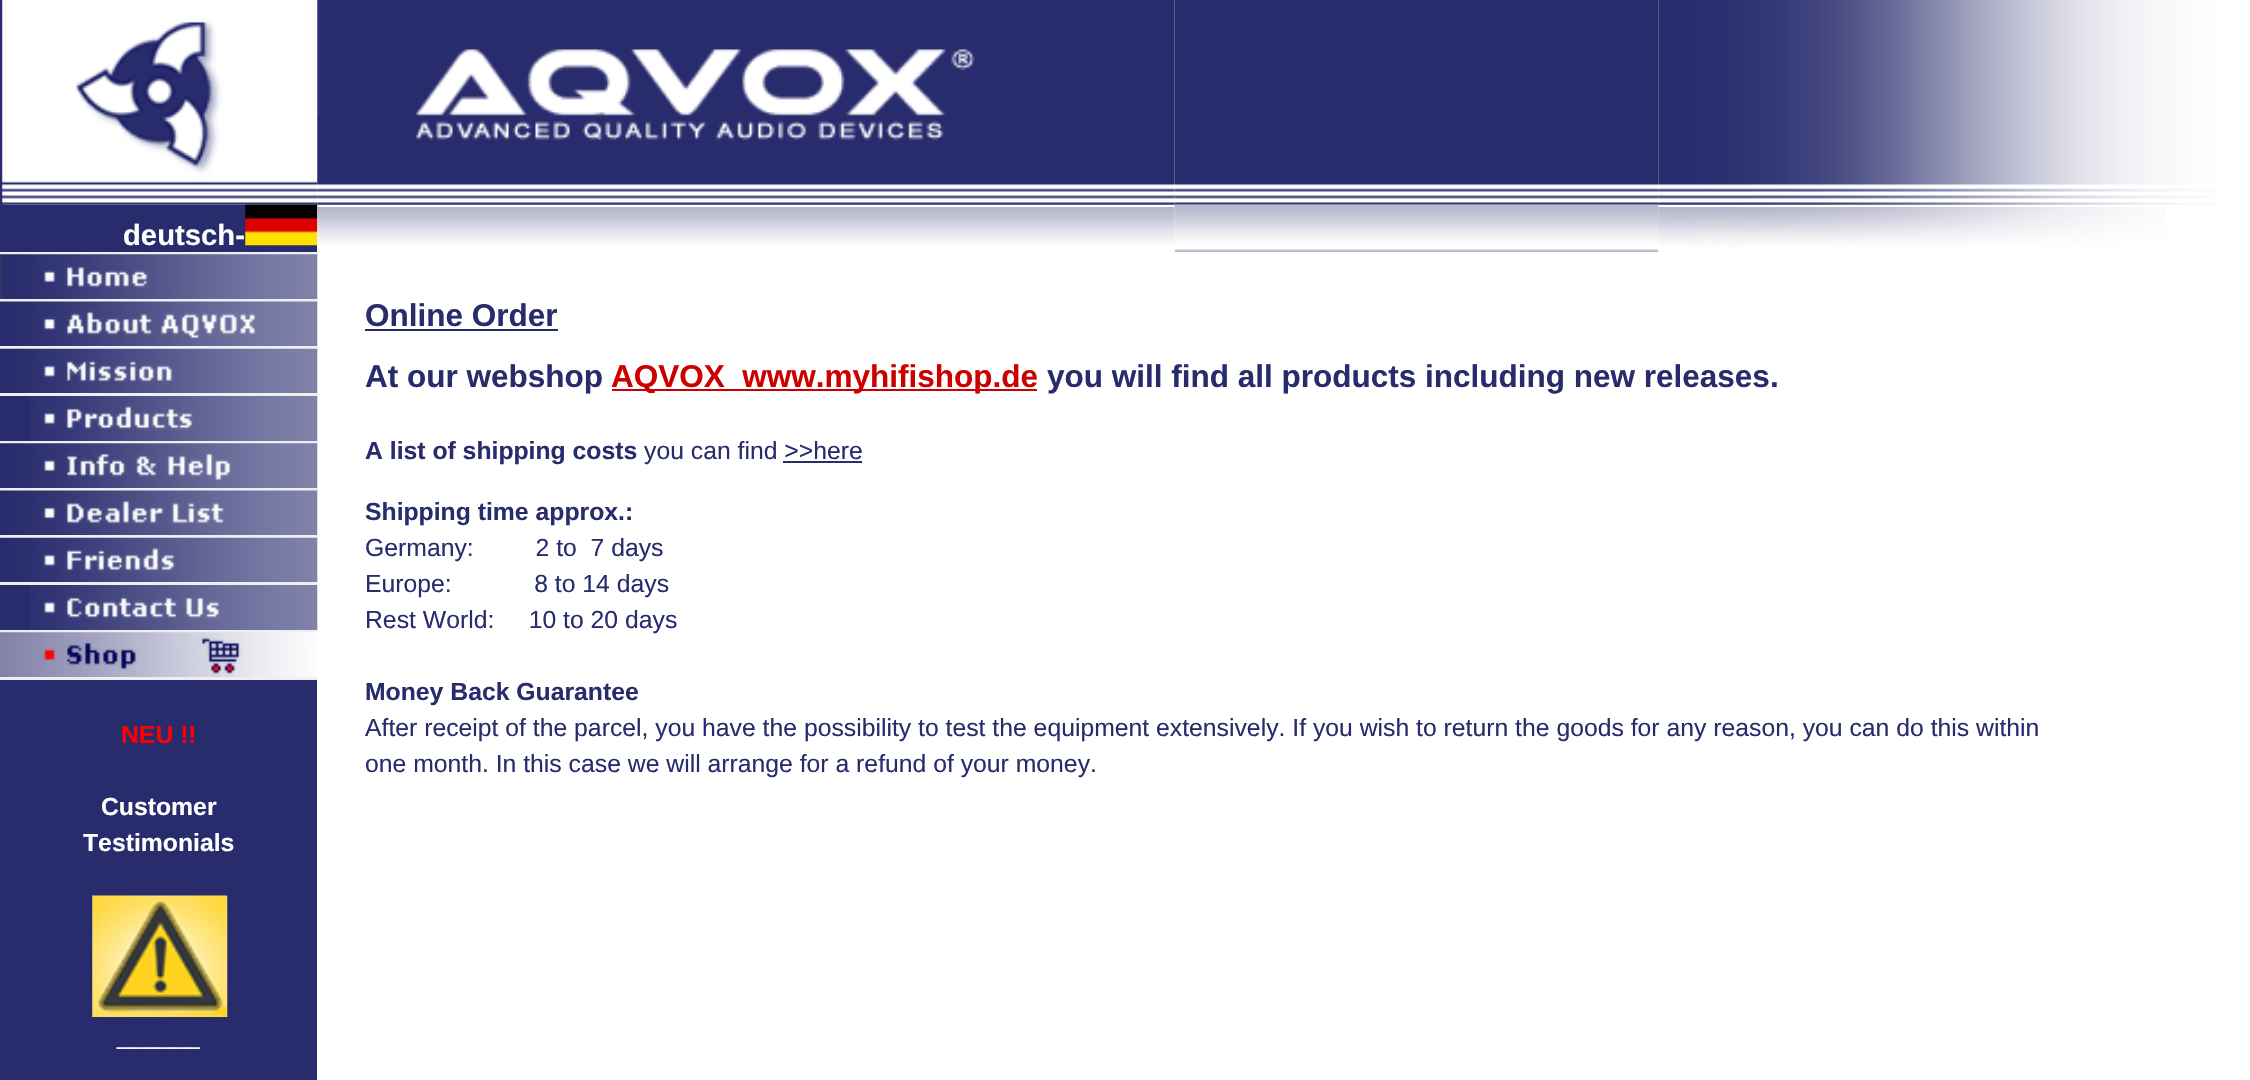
void draw(SkCanvas* canvas) {
    SkPaint paint;
    paint.setAntiAlias(true);
    canvas->clear(0xFFFFFFFF);
    paint.setColor(0xFF282C6D);
    canvas->drawRect(SkRect::MakeXYWH(0, 0, 3, 205), paint);
    canvas->drawImageRect(SkImages::DeferredFromEncodedData(SkData::MakeFromFileName("img1.png")), SkRect::MakeXYWH(2, 0, 316, 205), SkSamplingOptions());
    canvas->drawImageRect(SkImages::DeferredFromEncodedData(SkData::MakeFromFileName("img3.png")), SkRect::MakeXYWH(1174, 0, 485, 205), SkSamplingOptions());
    canvas->drawImageRect(SkImages::DeferredFromEncodedData(SkData::MakeFromFileName("img7.png")), SkRect::MakeXYWH(1174, 204, 485, 48), SkSamplingOptions());
    canvas->drawImageRect(SkImages::DeferredFromEncodedData(SkData::MakeFromFileName("img2.png")), SkRect::MakeXYWH(317, 0, 858, 205), SkSamplingOptions());
    canvas->drawImageRect(SkImages::DeferredFromEncodedData(SkData::MakeFromFileName("img4.png")), SkRect::MakeXYWH(1658, 0, 557, 205), SkSamplingOptions());
    canvas->drawRect(SkRect::MakeXYWH(0, 205, 317, 47), paint);
    SkFont font1(fontMgr->matchFamilyStyle("Liberation Sans", SkFontStyle::Bold()), 29.25f);
    font1.setSubpixel(true);
    paint.setColor(0xFFFFFFFF);
    canvas->drawString("deutsch-", 123, 245, font1, paint);
    canvas->drawImageRect(SkImages::DeferredFromEncodedData(SkData::MakeFromFileName("img5.png")), SkRect::MakeXYWH(245, 204, 73, 42), SkSamplingOptions());
    canvas->drawImageRect(SkImages::DeferredFromEncodedData(SkData::MakeFromFileName("img6.png")), SkRect::MakeXYWH(317, 207, 858, 45), SkSamplingOptions());
    canvas->drawImageRect(SkImages::DeferredFromEncodedData(SkData::MakeFromFileName("img8.png")), SkRect::MakeXYWH(1658, 207, 508, 45), SkSamplingOptions());
    SkFont font2(fontMgr->matchFamilyStyle("Liberation Sans", SkFontStyle::Bold()), 31.5f);
    font2.setSubpixel(true);
    paint.setColor(0xFF282C6D);
    canvas->drawString("Online Order", 365, 326, font2, paint);
    canvas->drawRect(SkRect::MakeXYWH(365, 329, 193, 2), paint);
    canvas->drawString("At our webshop", 365, 387, font2, paint);
    paint.setColor(0xFFCD0000);
    canvas->drawRect(SkRect::MakeXYWH(612, 389, 425, 2), paint);
    canvas->drawString("AQVOX  www.myhifishop.de", 611, 387, font2, paint);
    paint.setColor(0xFF282C6D);
    canvas->drawString("you will find all products including new releases.", 1047, 387, font2, paint);
    SkFont font3(fontMgr->matchFamilyStyle("Liberation Sans", SkFontStyle::Bold()), 24.75f);
    font3.setSubpixel(true);
    canvas->drawString("A list of shipping costs", 365, 459, font3, paint);
    SkFont font4(fontMgr->matchFamilyStyle("Liberation Sans", SkFontStyle::Normal()), 24.75f);
    font4.setSubpixel(true);
    canvas->drawString("you can find >>here", 644, 459, font4, paint);
    canvas->drawRect(SkRect::MakeXYWH(783, 461, 79, 2), paint);
    canvas->drawString("Shipping time approx.:", 365, 520, font3, paint);
    canvas->drawString("Germany:         2 to  7 days", 365, 556, font4, paint);
    canvas->drawString("Europe:            8 to 14 days", 365, 592, font4, paint);
    canvas->drawString("Rest World:     10 to 20 days", 365, 628, font4, paint);
    canvas->drawString("Money Back Guarantee", 365, 700, font3, paint);
    canvas->drawString("After receipt of the parcel, you have the possibility to test the equipment extensively. If you wish to return the goods for any reason, you can do this within", 365, 736, font4, paint);
    canvas->drawString("one month. In this case we will arrange for a refund of your money.", 365, 772, font4, paint);
    canvas->drawRect(SkRect::MakeXYWH(0, 396, 317, 684), paint);
    paint.setColor(0xFFEFEEF4);
    canvas->drawRect(SkRect::MakeXYWH(0, 252, 318, 3), paint);
    canvas->drawImageRect(SkImages::DeferredFromEncodedData(SkData::MakeFromFileName("img9.png")), SkRect::MakeXYWH(0, 254, 318, 45), SkSamplingOptions());
    canvas->drawRect(SkRect::MakeXYWH(0, 299, 318, 3), paint);
    canvas->drawImageRect(SkImages::DeferredFromEncodedData(SkData::MakeFromFileName("img10.png")), SkRect::MakeXYWH(0, 301, 318, 45), SkSamplingOptions());
    canvas->drawRect(SkRect::MakeXYWH(0, 346, 318, 3), paint);
    canvas->drawImageRect(SkImages::DeferredFromEncodedData(SkData::MakeFromFileName("img11.png")), SkRect::MakeXYWH(0, 348, 318, 45), SkSamplingOptions());
    canvas->drawRect(SkRect::MakeXYWH(0, 393, 318, 3), paint);
    canvas->drawImageRect(SkImages::DeferredFromEncodedData(SkData::MakeFromFileName("img12.png")), SkRect::MakeXYWH(30, 396, 288, 45), SkSamplingOptions());
    canvas->drawRect(SkRect::MakeXYWH(0, 441, 318, 3), paint);
    canvas->drawImageRect(SkImages::DeferredFromEncodedData(SkData::MakeFromFileName("img13.png")), SkRect::MakeXYWH(0, 443, 318, 45), SkSamplingOptions());
    canvas->drawRect(SkRect::MakeXYWH(0, 488, 318, 3), paint);
    canvas->drawImageRect(SkImages::DeferredFromEncodedData(SkData::MakeFromFileName("img14.png")), SkRect::MakeXYWH(0, 490, 318, 45), SkSamplingOptions());
    canvas->drawRect(SkRect::MakeXYWH(0, 535, 318, 3), paint);
    canvas->drawImageRect(SkImages::DeferredFromEncodedData(SkData::MakeFromFileName("img15.png")), SkRect::MakeXYWH(0, 537, 318, 45), SkSamplingOptions());
    canvas->drawRect(SkRect::MakeXYWH(0, 582, 318, 3), paint);
    canvas->drawImageRect(SkImages::DeferredFromEncodedData(SkData::MakeFromFileName("img16.png")), SkRect::MakeXYWH(30, 585, 288, 45), SkSamplingOptions());
    canvas->drawRect(SkRect::MakeXYWH(0, 630, 318, 3), paint);
    canvas->drawImageRect(SkImages::DeferredFromEncodedData(SkData::MakeFromFileName("img17.png")), SkRect::MakeXYWH(0, 632, 317, 45), SkSamplingOptions());
    canvas->drawRect(SkRect::MakeXYWH(0, 677, 318, 3), paint);
    paint.setColor(0xFFFF0000);
    canvas->drawString("NEU !!", 121, 743, font3, paint);
    paint.setColor(0xFFFFFFFF);
    canvas->drawString("Customer", 101, 815, font3, paint);
    canvas->drawString("Testimonials", 83, 851, font3, paint);
    canvas->drawImageRect(SkImages::DeferredFromEncodedData(SkData::MakeFromFileName("img18.png")), SkRect::MakeXYWH(92, 895, 136, 122), SkSamplingOptions());
    canvas->drawString("______", 117, 1044, font4, paint);
}
